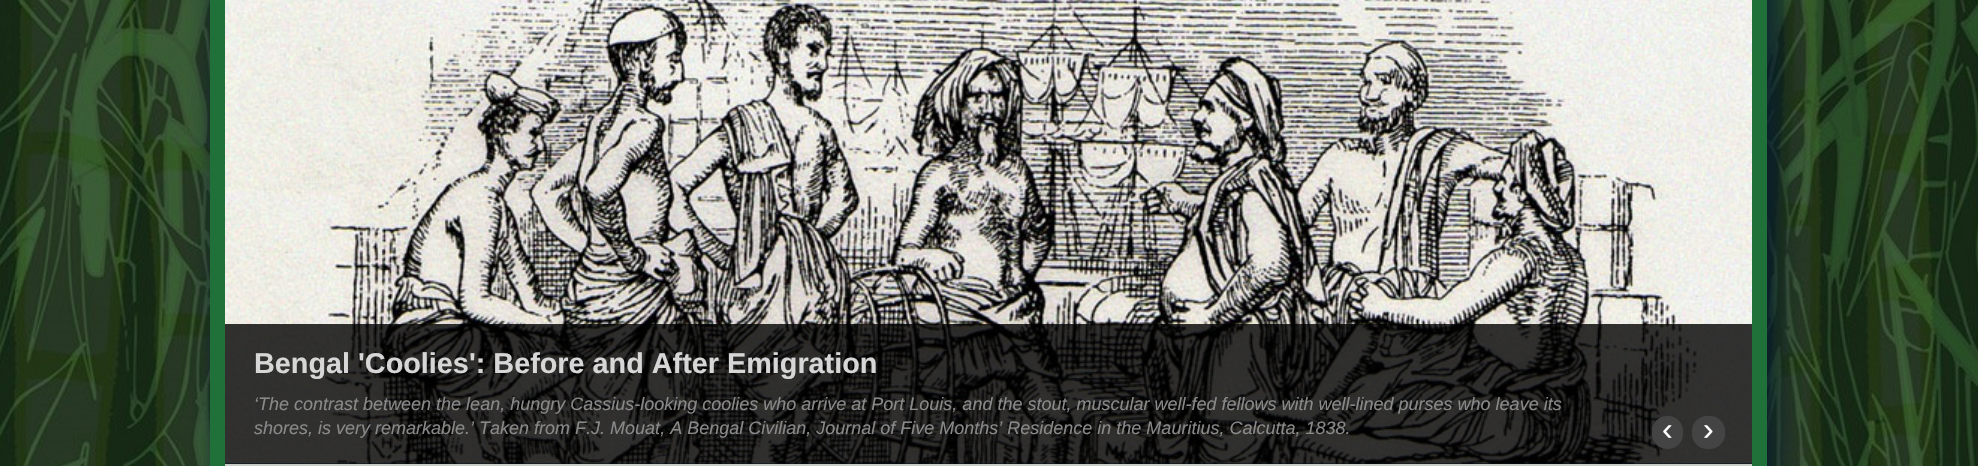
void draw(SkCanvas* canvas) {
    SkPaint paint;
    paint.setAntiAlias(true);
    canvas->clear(0xFFFFFFFF);
    canvas->drawImageRect(SkImages::DeferredFromEncodedData(SkData::MakeFromFileName("img1.png")), SkRect::MakeXYWH(0, 0, 1978, 466), SkSamplingOptions());
    paint.setColor(0xFF051B32);
    paint.setMaskFilter(SkMaskFilter::MakeBlur(kNormal_SkBlurStyle, 15));
    canvas->drawRoundRect(SkRect::MakeXYWH(218, -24, 1557, 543), 8, 8, paint);
    paint.setMaskFilter(nullptr);
    paint.setStyle(SkPaint::kStroke_Style);
    paint.setStrokeWidth(15);
    paint.setColor(0xFF207039);
    canvas->drawRect(SkRect::MakeXYWH(217.5f, -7.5f, 1542, 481), paint);
    paint.setStyle(SkPaint::kFill_Style);
    paint.setColor(0xFF054B81);
    canvas->drawRect(SkRect::MakeXYWH(225, 463, 1527, 1), paint);
    canvas->drawImageRect(SkImages::DeferredFromEncodedData(SkData::MakeFromFileName("img2.png")), SkRect::MakeXYWH(225, 0, 1527, 464), SkSamplingOptions());
    paint.setColor(0xCC000000);
    canvas->drawRect(SkRect::MakeXYWH(225, 324, 1527, 140), paint);
    SkFont font1(fontMgr->matchFamilyStyle("Liberation Sans", SkFontStyle::Bold()), 28.8f);
    font1.setSubpixel(true);
    paint.setColor(0xFFD7D7D7);
    canvas->drawString("Bengal 'Coolies': Before and After Emigration", 254, 373, font1, paint);
    SkFont font2(fontMgr->matchFamilyStyle("Liberation Sans", SkFontStyle::Italic()), 18);
    font2.setSubpixel(true);
    paint.setColor(0xFF898989);
    canvas->drawString("‘The contrast between the lean, hungry Cassius-looking coolies who arrive at Port Louis, and the stout, muscular well-fed fellows with well-lined purses who leave its", 254, 410, font2, paint);
    canvas->drawString("shores, is very remarkable.’ Taken from F.J. Mouat, A Bengal Civilian, Journal of Five Months’ Residence in the Mauritius, Calcutta, 1838.", 254, 434, font2, paint);
    paint.setColor(0xFF444444);
    canvas->drawRoundRect(SkRect::MakeXYWH(1652, 416, 31, 33), 15, 15, paint);
    SkFont font3(fontMgr->matchFamilyStyle("Liberation Sans", SkFontStyle::Normal()), 32);
    font3.setSubpixel(true);
    paint.setColor(0xFFFFFFFF);
    canvas->drawString("‹", 1662, 440, font3, paint);
    paint.setColor(0xFF444444);
    canvas->drawRoundRect(SkRect::MakeXYWH(1692, 416, 33, 33), 15, 15, paint);
    paint.setColor(0xFFFFFFFF);
    canvas->drawString("›", 1703, 440, font3, paint);
    {
        const SkColor colors[] = {0xFFC5CBC4, 0xFFFFFFFF};
        const float stops[] = {0, 0.05f};
        const SkPoint ends[] = {{225, 464}, {225, 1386}};
        paint.setShader(SkGradientShader::MakeLinear(ends, colors, stops, 2, SkTileMode::kClamp));
        paint.setAlpha(255);
    }
    canvas->drawRect(SkRect::MakeXYWH(225, 464, 1527, 2), paint);
}
